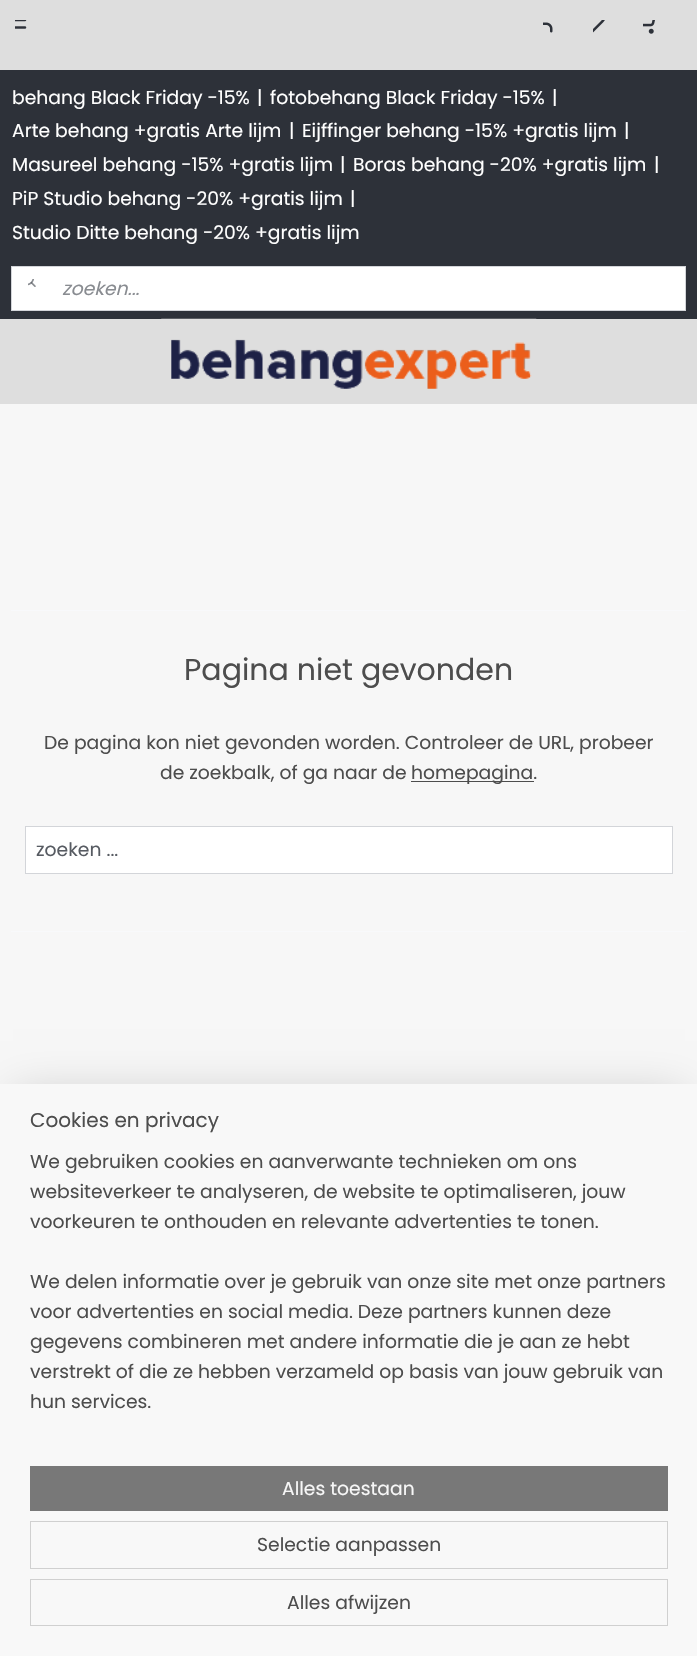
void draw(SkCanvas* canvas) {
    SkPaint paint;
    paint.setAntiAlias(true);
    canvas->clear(0xFFF7F7F7);
    paint.setColor(0xFFDEDEDE);
    canvas->drawRect(SkRect::MakeXYWH(0, 0, 697, 70), paint);
    canvas->drawImageRect(SkImages::DeferredFromEncodedData(SkData::MakeFromFileName("img1.png")), SkRect::MakeXYWH(15, 20, 12, 9), SkSamplingOptions());
    canvas->drawImageRect(SkImages::DeferredFromEncodedData(SkData::MakeFromFileName("img2.png")), SkRect::MakeXYWH(543, 22, 10, 11), SkSamplingOptions());
    canvas->drawImageRect(SkImages::DeferredFromEncodedData(SkData::MakeFromFileName("img3.png")), SkRect::MakeXYWH(593, 20, 12, 13), SkSamplingOptions());
    canvas->drawImageRect(SkImages::DeferredFromEncodedData(SkData::MakeFromFileName("img4.png")), SkRect::MakeXYWH(643, 20, 12, 14), SkSamplingOptions());
    canvas->drawRect(SkRect::MakeXYWH(0, 319, 697, 85), paint);
    paint.setColor(0xFF2D3139);
    canvas->drawRect(SkRect::MakeXYWH(0, 70, 697, 249), paint);
    SkFont font1(fontMgr->matchFamilyStyle("Poppins", SkFontStyle::Normal()), 18.75f);
    font1.setSubpixel(true);
    paint.setColor(0xFFFFFFFF);
    canvas->drawString("behang Black Friday -15%", 12, 104, font1, paint);
    canvas->drawString("|", 257, 104, font1, paint);
    canvas->drawString("fotobehang Black Friday -15%", 270, 104, font1, paint);
    canvas->drawString("|", 552, 104, font1, paint);
    canvas->drawString("Arte behang +gratis Arte lijm", 12, 137, font1, paint);
    canvas->drawString("|", 289, 137, font1, paint);
    canvas->drawString("Eijffinger behang -15% +gratis lijm", 302, 137, font1, paint);
    canvas->drawString("|", 624, 137, font1, paint);
    canvas->drawString("Masureel behang -15% +gratis lijm", 12, 171, font1, paint);
    canvas->drawString("|", 340, 171, font1, paint);
    canvas->drawString("Boras behang -20% +gratis lijm", 353, 171, font1, paint);
    canvas->drawString("|", 654, 171, font1, paint);
    canvas->drawString("PiP Studio behang -20% +gratis lijm", 12, 205, font1, paint);
    canvas->drawString("|", 350, 205, font1, paint);
    canvas->drawString("Studio Ditte behang -20% +gratis lijm", 12, 239, font1, paint);
    canvas->drawRect(SkRect::MakeXYWH(11.5f, 266.5f, 674, 44), paint);
    paint.setStyle(SkPaint::kStroke_Style);
    paint.setStrokeWidth(1);
    paint.setColor(0xFFD3D5D9);
    canvas->drawRect(SkRect::MakeXYWH(11.5f, 266.5f, 674, 44), paint);
    canvas->drawImageRect(SkImages::DeferredFromEncodedData(SkData::MakeFromFileName("img5.png")), SkRect::MakeXYWH(28, 279, 8, 8), SkSamplingOptions());
    SkFont font2(fontMgr->matchFamilyStyle("Poppins", SkFontStyle::Italic()), 18.75f);
    font2.setSubpixel(true);
    paint.setStyle(SkPaint::kFill_Style);
    paint.setColor(0xFF898C91);
    canvas->drawString("zoeken...", 62, 295, font2, paint);
    canvas->drawImageRect(SkImages::DeferredFromEncodedData(SkData::MakeFromFileName("img6.png")), SkRect::MakeXYWH(161, 318, 376, 71), SkSamplingOptions());
    paint.setColor(0xFFF8F9FB);
    canvas->drawRect(SkRect::MakeXYWH(11, 610, 675, 1), paint);
    canvas->drawRect(SkRect::MakeXYWH(11, 931, 675, 1), paint);
    SkFont font3(fontMgr->matchFamilyStyle("Poppins", SkFontStyle::Normal()), 30);
    font3.setSubpixel(true);
    paint.setColor(0xFF4D4D4D);
    canvas->drawString("Pagina niet gevonden", 184, 680, font3, paint);
    canvas->drawString("De pagina kon niet gevonden worden. Controleer de URL, probeer", 44, 749, font1, paint);
    canvas->drawString("de zoekbalk, of ga naar de", 160, 779, font1, paint);
    canvas->drawRect(SkRect::MakeXYWH(411, 781, 123, 1), paint);
    canvas->drawString("homepagina.", 411, 779, font1, paint);
    paint.setColor(0xFFFFFFFF);
    canvas->drawRect(SkRect::MakeXYWH(25.5f, 826.5f, 647, 47), paint);
    paint.setStyle(SkPaint::kStroke_Style);
    paint.setColor(0xFFD3D5D9);
    canvas->drawRect(SkRect::MakeXYWH(25.5f, 826.5f, 647, 47), paint);
    paint.setStyle(SkPaint::kFill_Style);
    paint.setColor(0xFF575B62);
    canvas->drawString("zoeken ...", 36, 856, font1, paint);
    paint.setColor(0x33000000);
    paint.setMaskFilter(SkMaskFilter::MakeBlur(kNormal_SkBlurStyle, 22.5f));
    canvas->drawRect(SkRect::MakeXYWH(13, 1096, 672, 548), paint);
    paint.setMaskFilter(nullptr);
    paint.setColor(0xFFF8F8F8);
    canvas->drawRect(SkRect::MakeXYWH(0, 1084, 697, 572), paint);
    SkFont font4(fontMgr->matchFamilyStyle("Poppins", SkFontStyle::Normal()), 20);
    font4.setSubpixel(true);
    paint.setColor(0xFF4D4D4D);
    canvas->drawString("Cookies en privacy", 30, 1127, font4, paint);
    canvas->drawString("We gebruiken cookies en aanverwante technieken om ons", 30, 1168, font1, paint);
    canvas->drawString("websiteverkeer te analyseren, de website te optimaliseren, jouw", 30, 1198, font1, paint);
    canvas->drawString("voorkeuren te onthouden en relevante advertenties te tonen.", 30, 1228, font1, paint);
    canvas->drawString("We delen informatie over je gebruik van onze site met onze partners", 30, 1288, font1, paint);
    canvas->drawString("voor advertenties en social media. Deze partners kunnen deze", 30, 1318, font1, paint);
    canvas->drawString("gegevens combineren met andere informatie die je aan ze hebt", 30, 1348, font1, paint);
    canvas->drawString("verstrekt of die ze hebben verzameld op basis van jouw gebruik van", 30, 1378, font1, paint);
    canvas->drawString("hun services.", 30, 1408, font1, paint);
    paint.setColor(0xFF787878);
    canvas->drawRect(SkRect::MakeXYWH(30, 1466, 638, 45), paint);
    paint.setColor(0xFFF7F7F7);
    canvas->drawString("Alles toestaan", 282, 1495, font1, paint);
    paint.setStyle(SkPaint::kStroke_Style);
    paint.setColor(0xFFD0D0D0);
    canvas->drawRect(SkRect::MakeXYWH(30.5f, 1521.5f, 637, 47), paint);
    paint.setStyle(SkPaint::kFill_Style);
    paint.setColor(0xFF4D4D4D);
    canvas->drawString("Selectie aanpassen", 257, 1551, font1, paint);
    paint.setStyle(SkPaint::kStroke_Style);
    paint.setColor(0xFFD0D0D0);
    canvas->drawRect(SkRect::MakeXYWH(30.5f, 1579.5f, 637, 46), paint);
    paint.setStyle(SkPaint::kFill_Style);
    paint.setColor(0xFF4D4D4D);
    canvas->drawString("Alles afwijzen", 287, 1609, font1, paint);
}
